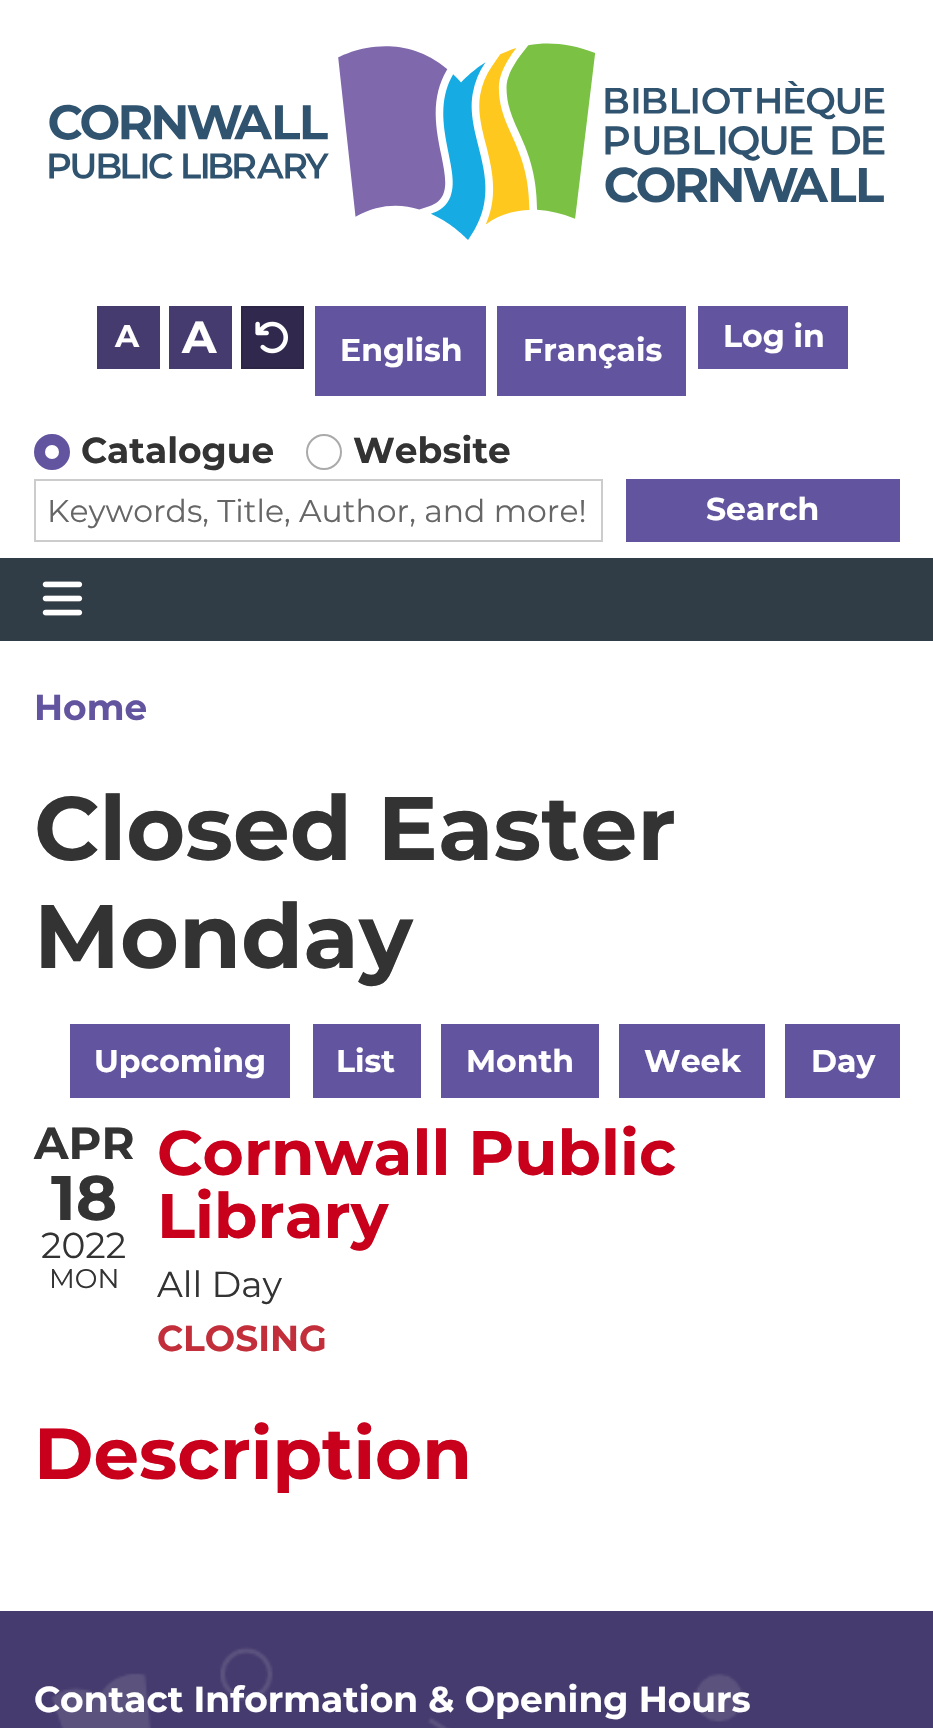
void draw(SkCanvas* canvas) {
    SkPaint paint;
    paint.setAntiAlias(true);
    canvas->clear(0xFFFFFFFF);
    canvas->drawImageRect(SkImages::DeferredFromEncodedData(SkData::MakeFromFileName("img1.png")), SkRect::MakeXYWH(49, 43, 836, 197), SkSamplingOptions());
    paint.setColor(0xFF463B6E);
    canvas->drawRect(SkRect::MakeXYWH(97, 306, 63, 63), paint);
    SkFont font1(fontMgr->matchFamilyStyle("Montserrat", SkFontStyle::Bold()), 31.5f);
    font1.setSubpixel(true);
    paint.setColor(0xFFFFFFFF);
    canvas->drawString("A", 115, 347, font1, paint);
    paint.setColor(0xFF463B6E);
    canvas->drawRect(SkRect::MakeXYWH(169, 306, 63, 63), paint);
    SkFont font2(fontMgr->matchFamilyStyle("Montserrat", SkFontStyle::Bold()), 45);
    font2.setSubpixel(true);
    paint.setColor(0xFFFFFFFF);
    canvas->drawString("A", 182, 353, font2, paint);
    paint.setColor(0xFF31294D);
    canvas->drawRect(SkRect::MakeXYWH(242, 307, 61, 61), paint);
    paint.setStyle(SkPaint::kStroke_Style);
    paint.setStrokeWidth(2);
    paint.setColor(0xFF2C2545);
    canvas->drawRect(SkRect::MakeXYWH(242, 307, 61, 61), paint);
    canvas->drawImageRect(SkImages::DeferredFromEncodedData(SkData::MakeFromFileName("img2.png")), SkRect::MakeXYWH(255, 321, 33, 33), SkSamplingOptions());
    paint.setStyle(SkPaint::kFill_Style);
    paint.setColor(0xFF63549F);
    canvas->drawRect(SkRect::MakeXYWH(315, 306, 171, 90), paint);
    paint.setColor(0xFFFFFFFF);
    canvas->drawString("English", 340, 361, font1, paint);
    paint.setColor(0xFF63549F);
    canvas->drawRect(SkRect::MakeXYWH(497, 306, 189, 90), paint);
    paint.setColor(0xFFFFFFFF);
    canvas->drawString("Français", 523, 361, font1, paint);
    paint.setColor(0xFF63549F);
    canvas->drawRect(SkRect::MakeXYWH(698, 306, 150, 63), paint);
    paint.setColor(0xFFFFFFFF);
    canvas->drawString("Log in", 723, 347, font1, paint);
    paint.setColor(0xFF63549F);
    canvas->drawCircle(52, 452, 17, paint);
    paint.setStyle(SkPaint::kStroke_Style);
    canvas->drawCircle(52, 452, 17, paint);
    SkFont font3(fontMgr->matchFamilyStyle("Montserrat", SkFontStyle::Bold()), 36);
    font3.setSubpixel(true);
    paint.setStyle(SkPaint::kFill_Style);
    paint.setColor(0xFF333333);
    canvas->drawString("Catalogue", 81, 463, font3, paint);
    paint.setColor(0xFFFFFFFF);
    canvas->drawCircle(52, 452, 7, paint);
    paint.setStyle(SkPaint::kStroke_Style);
    paint.setColor(0xFFAAAAAA);
    canvas->drawCircle(324, 452, 17, paint);
    paint.setStyle(SkPaint::kFill_Style);
    paint.setColor(0xFF333333);
    canvas->drawString("Website", 353, 463, font3, paint);
    paint.setStyle(SkPaint::kStroke_Style);
    paint.setColor(0xFFCCCCCC);
    canvas->drawRect(SkRect::MakeXYWH(35, 480, 567, 61), paint);
    SkFont font4(fontMgr->matchFamilyStyle("Montserrat", SkFontStyle::Normal()), 31.5f);
    font4.setSubpixel(true);
    paint.setStyle(SkPaint::kFill_Style);
    paint.setColor(0xFF666666);
    canvas->drawString("Keywords, Title, Author, and more!", 47, 522, font4, paint);
    paint.setColor(0xFF63549F);
    canvas->drawRect(SkRect::MakeXYWH(626, 479, 274, 63), paint);
    paint.setColor(0xFFFFFFFF);
    canvas->drawString("Search", 706, 520, font1, paint);
    paint.setColor(0xFF313D46);
    canvas->drawRect(SkRect::MakeXYWH(0, 558, 933, 83), paint);
    canvas->drawImageRect(SkImages::DeferredFromEncodedData(SkData::MakeFromFileName("img3.png")), SkRect::MakeXYWH(42, 581, 41, 35), SkSamplingOptions());
    paint.setColor(0xFF63549F);
    canvas->drawString("Home", 34, 720, font3, paint);
    SkFont font5(fontMgr->matchFamilyStyle("Montserrat", SkFontStyle::Bold()), 90);
    font5.setSubpixel(true);
    paint.setColor(0xFF333333);
    canvas->drawString("Closed Easter", 34, 860, font5, paint);
    canvas->drawString("Monday", 34, 968, font5, paint);
    paint.setColor(0xFF63549F);
    canvas->drawRect(SkRect::MakeXYWH(70, 1024, 220, 74), paint);
    paint.setColor(0xFFFFFFFF);
    canvas->drawString("Upcoming", 94, 1072, font1, paint);
    paint.setColor(0xFF63549F);
    canvas->drawRect(SkRect::MakeXYWH(313, 1024, 108, 74), paint);
    paint.setColor(0xFFFFFFFF);
    canvas->drawString("List", 336, 1072, font1, paint);
    paint.setColor(0xFF63549F);
    canvas->drawRect(SkRect::MakeXYWH(441, 1024, 158, 74), paint);
    paint.setColor(0xFFFFFFFF);
    canvas->drawString("Month", 466, 1072, font1, paint);
    paint.setColor(0xFF63549F);
    canvas->drawRect(SkRect::MakeXYWH(619, 1024, 146, 74), paint);
    paint.setColor(0xFFFFFFFF);
    canvas->drawString("Week", 644, 1072, font1, paint);
    paint.setColor(0xFF63549F);
    canvas->drawRect(SkRect::MakeXYWH(785, 1024, 115, 74), paint);
    paint.setColor(0xFFFFFFFF);
    canvas->drawString("Day", 811, 1072, font1, paint);
    paint.setColor(0xFF333333);
    canvas->drawString("APR", 34, 1159, font2, paint);
    SkFont font6(fontMgr->matchFamilyStyle("Montserrat", SkFontStyle::Bold()), 63);
    font6.setSubpixel(true);
    canvas->drawString("18", 51, 1220, font6, paint);
    SkFont font7(fontMgr->matchFamilyStyle("Montserrat", SkFontStyle::Normal()), 36);
    font7.setSubpixel(true);
    canvas->drawString("2022", 41, 1258, font7, paint);
    SkFont font8(fontMgr->matchFamilyStyle("Montserrat", SkFontStyle::Normal()), 27);
    font8.setSubpixel(true);
    canvas->drawString("MON", 49, 1288, font8, paint);
    paint.setColor(0xFFC9001C);
    canvas->drawString("Cornwall Public", 157, 1175, font6, paint);
    canvas->drawString("Library", 157, 1238, font6, paint);
    paint.setColor(0xFF333333);
    canvas->drawString("All Day", 157, 1297, font7, paint);
    paint.setColor(0xFFC22F3B);
    canvas->drawString("CLOSING", 157, 1351, font3, paint);
    SkFont font9(fontMgr->matchFamilyStyle("Montserrat", SkFontStyle::Bold()), 72);
    font9.setSubpixel(true);
    paint.setColor(0xFFC9001C);
    canvas->drawString("Description", 34, 1479, font9, paint);
    canvas->drawImageRect(SkImages::DeferredFromEncodedData(SkData::MakeFromFileName("img4.png")), SkRect::MakeXYWH(0, 1611, 933, 117), SkSamplingOptions());
    paint.setColor(0xFFFFFFFF);
    canvas->drawString("Contact Information & Opening Hours", 34, 1712, font3, paint);
}
